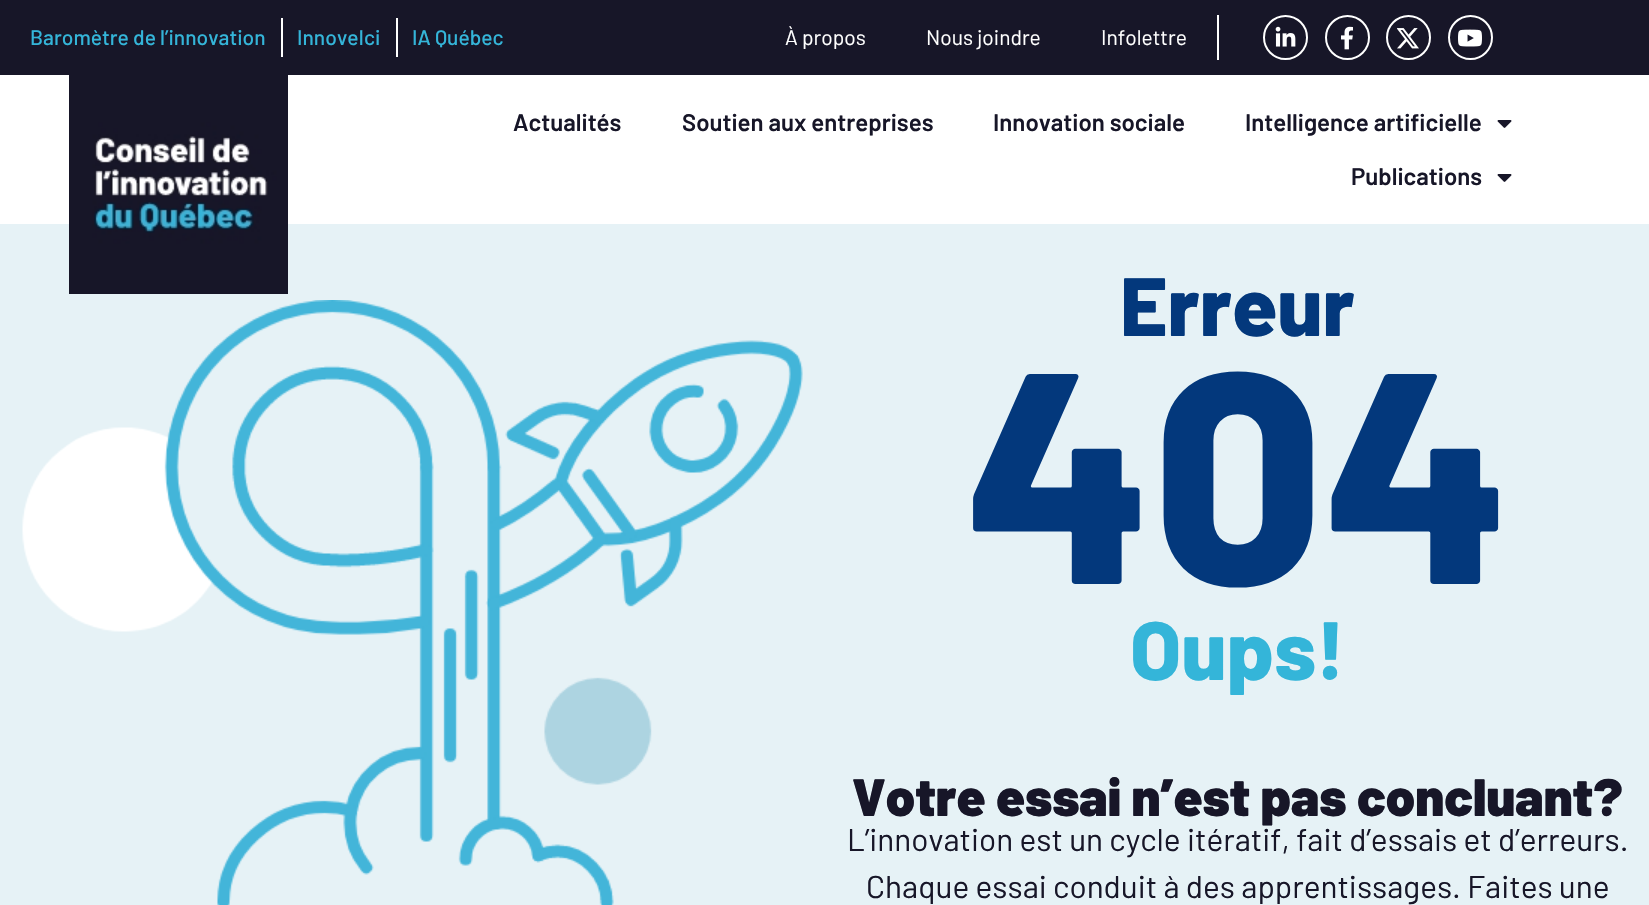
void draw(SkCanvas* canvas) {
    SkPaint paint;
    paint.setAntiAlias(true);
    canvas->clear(0xFFE6F2F6);
    paint.setColor(0xFF171628);
    canvas->drawRect(SkRect::MakeXYWH(0, 0, 1649, 75), paint);
    SkFont font1(fontMgr->matchFamilyStyle("Barlow", SkFontStyle(500, SkFontStyle::kNormal_Width, SkFontStyle::kUpright_Slant)), 21);
    font1.setSubpixel(true);
    paint.setColor(0xFF34B5D9);
    canvas->drawString("Baromètre de l’innovation", 30, 45, font1, paint);
    paint.setColor(0xFFFFFFFF);
    canvas->drawRect(SkRect::MakeXYWH(281, 18, 2, 39), paint);
    paint.setColor(0xFF34B5D9);
    canvas->drawString("InnoveIci", 297, 45, font1, paint);
    paint.setColor(0xFFFFFFFF);
    canvas->drawRect(SkRect::MakeXYWH(396, 18, 2, 39), paint);
    paint.setColor(0xFF34B5D9);
    canvas->drawString("IA Québec", 412, 45, font1, paint);
    paint.setColor(0xFFFFFFFF);
    canvas->drawRect(SkRect::MakeXYWH(1217, 15, 2, 45), paint);
    SkFont font2(fontMgr->matchFamilyStyle("Barlow", SkFontStyle::Normal()), 21);
    font2.setSubpixel(true);
    canvas->drawString("À propos", 785, 45, font2, paint);
    canvas->drawString("Nous joindre", 926, 45, font2, paint);
    canvas->drawString("Infolettre", 1101, 45, font2, paint);
    paint.setStyle(SkPaint::kStroke_Style);
    paint.setStrokeWidth(2);
    canvas->drawCircle(1285.5f, 37.5f, 21.5f, paint);
    canvas->drawImageRect(SkImages::DeferredFromEncodedData(SkData::MakeFromFileName("img1.png")), SkRect::MakeXYWH(1275, 26, 21, 21), SkSamplingOptions());
    canvas->drawCircle(1347.5f, 37.5f, 21.5f, paint);
    canvas->drawImageRect(SkImages::DeferredFromEncodedData(SkData::MakeFromFileName("img2.png")), SkRect::MakeXYWH(1341, 26, 12, 24), SkSamplingOptions());
    canvas->drawCircle(1408.5f, 37.5f, 21.5f, paint);
    canvas->drawImageRect(SkImages::DeferredFromEncodedData(SkData::MakeFromFileName("img3.png")), SkRect::MakeXYWH(1397, 28, 22, 21), SkSamplingOptions());
    canvas->drawCircle(1470.5f, 37.5f, 21.5f, paint);
    canvas->drawImageRect(SkImages::DeferredFromEncodedData(SkData::MakeFromFileName("img4.png")), SkRect::MakeXYWH(1458, 29, 24, 18), SkSamplingOptions());
    paint.setStyle(SkPaint::kFill_Style);
    canvas->drawRect(SkRect::MakeXYWH(0, 75, 1649, 149), paint);
    canvas->drawImageRect(SkImages::DeferredFromEncodedData(SkData::MakeFromFileName("img5.png")), SkRect::MakeXYWH(69, 75, 219, 219), SkSamplingOptions());
    SkFont font3(fontMgr->matchFamilyStyle("Barlow", SkFontStyle(600, SkFontStyle::kNormal_Width, SkFontStyle::kUpright_Slant)), 24);
    font3.setSubpixel(true);
    paint.setColor(0xFF171628);
    canvas->drawString("Actualités", 513, 131, font3, paint);
    canvas->drawString("Soutien aux entreprises", 682, 131, font3, paint);
    canvas->drawString("Innovation sociale", 993, 131, font3, paint);
    canvas->drawString("Intelligence artificielle", 1245, 131, font3, paint);
    canvas->drawImageRect(SkImages::DeferredFromEncodedData(SkData::MakeFromFileName("img6.png")), SkRect::MakeXYWH(1497, 120, 15, 8), SkSamplingOptions());
    canvas->drawString("Publications", 1351, 185, font3, paint);
    canvas->drawImageRect(SkImages::DeferredFromEncodedData(SkData::MakeFromFileName("img6.png")), SkRect::MakeXYWH(1497, 174, 15, 8), SkSamplingOptions());
    canvas->drawImageRect(SkImages::DeferredFromEncodedData(SkData::MakeFromFileName("img7.png")), SkRect::MakeXYWH(22, 300, 781, 605), SkSamplingOptions());
    SkFont font4(fontMgr->matchFamilyStyle("Barlow", SkFontStyle(800, SkFontStyle::kNormal_Width, SkFontStyle::kUpright_Slant)), 82.5f);
    font4.setSubpixel(true);
    paint.setColor(0xFF03387C);
    canvas->drawString("Erreur", 1120, 336, font4, paint);
    SkFont font5(fontMgr->matchFamilyStyle("Barlow", SkFontStyle(800, SkFontStyle::kNormal_Width, SkFontStyle::kUpright_Slant)), 300);
    font5.setSubpixel(true);
    canvas->drawString("404", 965, 584, font5, paint);
    paint.setColor(0xFF34B5D9);
    canvas->drawString("Oups!", 1130, 680, font4, paint);
    SkFont font6(fontMgr->matchFamilyStyle("Barlow", SkFontStyle(900, SkFontStyle::kNormal_Width, SkFontStyle::kUpright_Slant)), 52.5f);
    font6.setSubpixel(true);
    paint.setColor(0xFF171628);
    canvas->drawString("Votre essai n’est pas concluant?", 852, 816, font6, paint);
    SkFont font7(fontMgr->matchFamilyStyle("Barlow", SkFontStyle::Normal()), 31.5f);
    font7.setSubpixel(true);
    canvas->drawString("L’innovation est un cycle itératif, fait d’essais et d’erreurs.", 847, 851, font7, paint);
    canvas->drawString("Chaque essai conduit à des apprentissages. Faites une", 866, 898, font7, paint);
}
